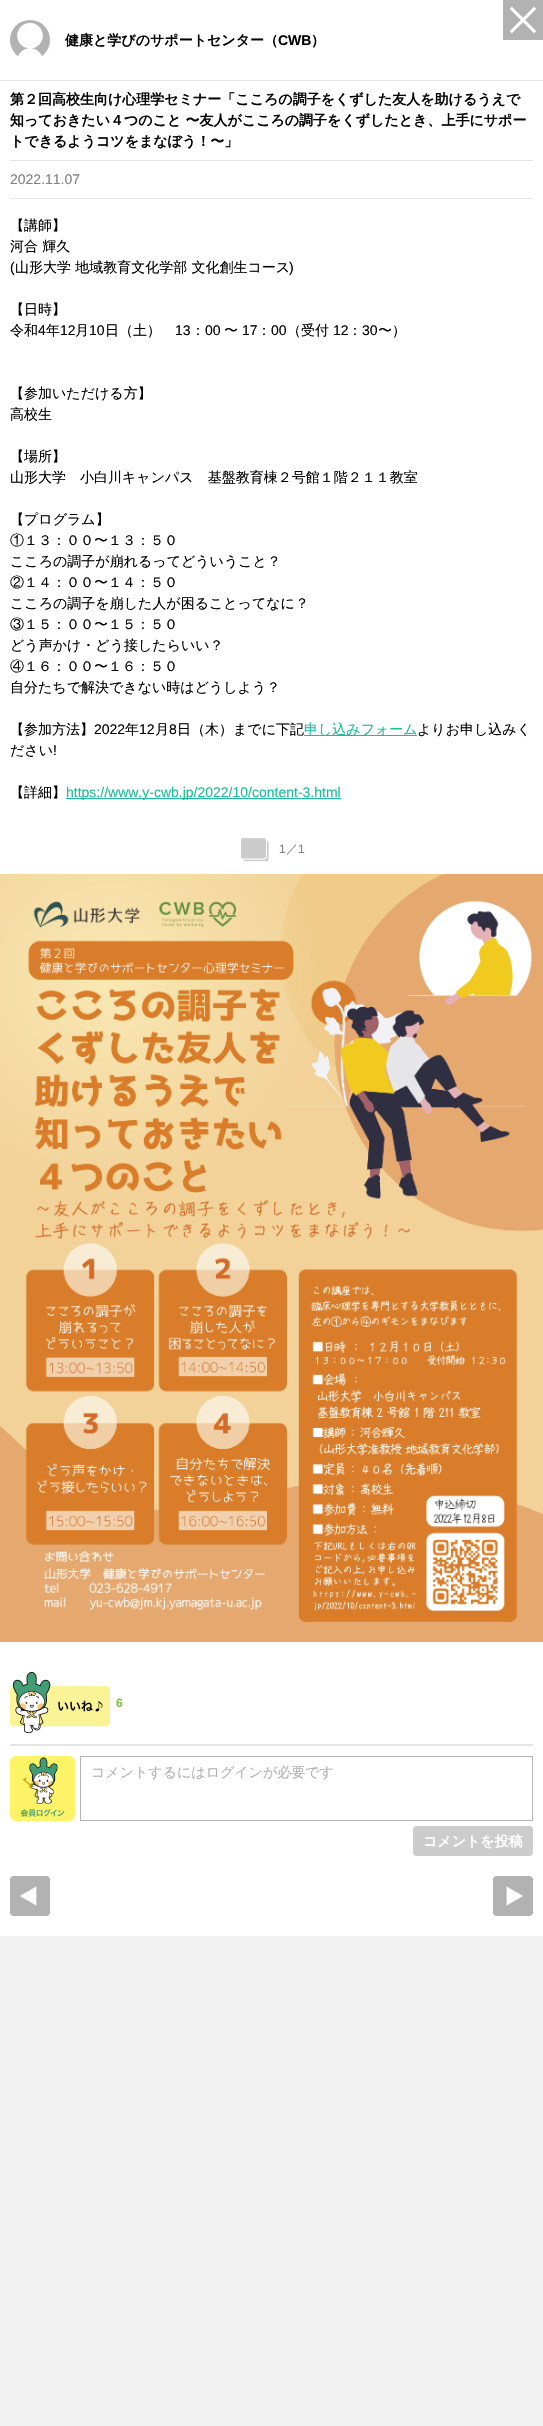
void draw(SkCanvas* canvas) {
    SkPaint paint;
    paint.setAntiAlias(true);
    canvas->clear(0xFFF2F2F2);
    paint.setColor(0xFFFFFFFF);
    canvas->drawRect(SkRect::MakeXYWH(0, 0, 543, 1936), paint);
    canvas->drawImageRect(SkImages::DeferredFromEncodedData(SkData::MakeFromFileName("img1.png")), SkRect::MakeXYWH(503, 0, 40, 40), SkSamplingOptions());
    paint.setColor(0xFFE5E5E5);
    canvas->drawRect(SkRect::MakeXYWH(0, 80, 543, 1), paint);
    canvas->drawImageRect(SkImages::DeferredFromEncodedData(SkData::MakeFromFileName("img2.png")), SkRect::MakeXYWH(10, 20, 40, 36), SkSamplingOptions());
    SkFont font1(fontMgr->matchFamilyStyle("WenQuanYi Zen Hei", SkFontStyle::Bold()), 14);
    font1.setSubpixel(true);
    paint.setColor(0xFF000000);
    canvas->drawString("健康と学びのサポートセンター（", 65, 45, font1, paint);
    SkFont font2(fontMgr->matchFamilyStyle("Liberation Sans", SkFontStyle::Bold()), 14);
    font2.setSubpixel(true);
    canvas->drawString("CWB", 278, 45, font2, paint);
    canvas->drawString("）", 311, 45, font1, paint);
    paint.setColor(0xFFE5E5E5);
    canvas->drawRect(SkRect::MakeXYWH(10, 160, 523, 1), paint);
    paint.setColor(0xFF000000);
    canvas->drawString("第２回高校生向け心理学セミナー「こころの調子をくずした友人を助けるうえで", 10, 104, font1, paint);
    canvas->drawString("知っておきたい４つのこと 〜友人がこころの調子をくずしたとき、上手にサポー", 10, 125, font1, paint);
    canvas->drawString("トできるようコツをまなぼう！〜」", 10, 146, font1, paint);
    paint.setColor(0xFFE5E5E5);
    canvas->drawRect(SkRect::MakeXYWH(10, 198, 523, 1), paint);
    SkFont font3(fontMgr->matchFamilyStyle("Liberation Sans", SkFontStyle::Normal()), 14);
    font3.setSubpixel(true);
    paint.setColor(0xFF808080);
    canvas->drawString("2022.11.07", 10, 184, font3, paint);
    SkFont font4(fontMgr->matchFamilyStyle("WenQuanYi Zen Hei", SkFontStyle(500, SkFontStyle::kNormal_Width, SkFontStyle::kUpright_Slant)), 14);
    font4.setSubpixel(true);
    paint.setColor(0xFF000000);
    canvas->drawString("【講師】", 10, 230, font4, paint);
    canvas->drawString("河合 輝久", 10, 251, font4, paint);
    canvas->drawString("(", 10, 272, font3, paint);
    canvas->drawString("山形大学 地域教育文化学部 文化創生コース", 15, 272, font4, paint);
    canvas->drawString(")", 289, 272, font3, paint);
    canvas->drawString("【日時】", 10, 314, font4, paint);
    canvas->drawString("令和", 10, 335, font4, paint);
    canvas->drawString("4", 38, 335, font3, paint);
    canvas->drawString("年", 46, 335, font4, paint);
    canvas->drawString("12", 60, 335, font3, paint);
    canvas->drawString("月", 75, 335, font4, paint);
    canvas->drawString("10", 89, 335, font3, paint);
    canvas->drawString("日（土）", 105, 335, font4, paint);
    canvas->drawString("13", 175, 335, font3, paint);
    canvas->drawString("：", 191, 335, font4, paint);
    canvas->drawString("00", 205, 335, font3, paint);
    canvas->drawString("〜", 224, 335, font4, paint);
    canvas->drawString("17", 242, 335, font3, paint);
    canvas->drawString("：", 257, 335, font4, paint);
    canvas->drawString("00", 271, 335, font3, paint);
    canvas->drawString("（受付", 287, 335, font4, paint);
    canvas->drawString("12", 333, 335, font3, paint);
    canvas->drawString("：", 348, 335, font4, paint);
    canvas->drawString("30", 362, 335, font3, paint);
    canvas->drawString("〜）", 378, 335, font4, paint);
    canvas->drawString("【参加いただける方】", 10, 398, font4, paint);
    canvas->drawString("高校生", 10, 419, font4, paint);
    canvas->drawString("【場所】", 10, 461, font4, paint);
    canvas->drawString("山形大学　小白川キャンパス　基盤教育棟２号館１階２１１教室", 10, 482, font4, paint);
    canvas->drawString("【プログラム】", 10, 524, font4, paint);
    canvas->drawString("①１３：００〜１３：５０", 10, 545, font4, paint);
    canvas->drawString("こころの調子が崩れるってどういうこと？", 10, 566, font4, paint);
    canvas->drawString("②１４：００〜１４：５０", 10, 587, font4, paint);
    canvas->drawString("こころの調子を崩した人が困ることってなに？", 10, 608, font4, paint);
    canvas->drawString("③１５：００〜１５：５０", 10, 629, font4, paint);
    canvas->drawString("どう声かけ・どう接したらいい？", 10, 650, font4, paint);
    canvas->drawString("④１６：００〜１６：５０", 10, 671, font4, paint);
    canvas->drawString("自分たちで解決できない時はどうしよう？", 10, 692, font4, paint);
    canvas->drawString("【参加方法】", 10, 734, font4, paint);
    canvas->drawString("2022", 94, 734, font3, paint);
    canvas->drawString("年", 125, 734, font4, paint);
    canvas->drawString("12", 139, 734, font3, paint);
    canvas->drawString("月", 155, 734, font4, paint);
    canvas->drawString("8", 169, 734, font3, paint);
    canvas->drawString("日（木）までに下記", 177, 734, font4, paint);
    paint.setColor(0xFF1ABC9C);
    canvas->drawRect(SkRect::MakeXYWH(304, 735, 113, 1), paint);
    canvas->drawString("申し込みフォーム", 304, 734, font4, paint);
    paint.setColor(0xFF000000);
    canvas->drawString("よりお申し込みく", 417, 734, font4, paint);
    canvas->drawString("ださい", 10, 755, font4, paint);
    canvas->drawString("!", 53, 755, font3, paint);
    canvas->drawString("【詳細】", 10, 797, font4, paint);
    paint.setColor(0xFF1ABC9C);
    canvas->drawRect(SkRect::MakeXYWH(66, 798, 275, 1), paint);
    canvas->drawString("https://www.y-cwb.jp/2022/10/content-3.html", 66, 797, font3, paint);
    canvas->drawImageRect(SkImages::DeferredFromEncodedData(SkData::MakeFromFileName("img3.png")), SkRect::MakeXYWH(241, 838, 28, 24), SkSamplingOptions());
    SkFont font5(fontMgr->matchFamilyStyle("Liberation Sans", SkFontStyle::Normal()), 12);
    font5.setSubpixel(true);
    paint.setColor(0xFF808080);
    canvas->drawString("1", 279, 853, font5, paint);
    SkFont font6(fontMgr->matchFamilyStyle("WenQuanYi Zen Hei", SkFontStyle(500, SkFontStyle::kNormal_Width, SkFontStyle::kUpright_Slant)), 12);
    font6.setSubpixel(true);
    canvas->drawString("／", 286, 853, font6, paint);
    canvas->drawString("1", 298, 853, font5, paint);
    canvas->drawImageRect(SkImages::DeferredFromEncodedData(SkData::MakeFromFileName("img4.png")), SkRect::MakeXYWH(0, 874, 543, 768), SkSamplingOptions());
    paint.setColor(0xFFE5E5E5);
    canvas->drawRect(SkRect::MakeXYWH(10, 1744, 523, 2), paint);
    canvas->drawImageRect(SkImages::DeferredFromEncodedData(SkData::MakeFromFileName("img5.png")), SkRect::MakeXYWH(10, 1672, 100, 61), SkSamplingOptions());
    SkFont font7(fontMgr->matchFamilyStyle("Liberation Sans", SkFontStyle::Bold()), 12);
    font7.setSubpixel(true);
    paint.setColor(0xFF82C238);
    canvas->drawString("6", 116, 1707, font7, paint);
    canvas->drawImageRect(SkImages::DeferredFromEncodedData(SkData::MakeFromFileName("img6.png")), SkRect::MakeXYWH(10, 1756, 65, 65), SkSamplingOptions());
    paint.setStyle(SkPaint::kStroke_Style);
    paint.setStrokeWidth(1);
    paint.setColor(0xFFB2B2B2);
    canvas->drawRect(SkRect::MakeXYWH(80.5f, 1756.5f, 452, 64), paint);
    paint.setStyle(SkPaint::kFill_Style);
    canvas->drawString("コメントするにはログインが必要です", 91, 1777, font4, paint);
    paint.setColor(0xFFCCCCCC);
    canvas->drawRoundRect(SkRect::MakeXYWH(413, 1826, 120, 30), 4, 4, paint);
    paint.setColor(0xFFFFFFFF);
    canvas->drawString("コメントを投稿", 423, 1846, font1, paint);
    canvas->drawImageRect(SkImages::DeferredFromEncodedData(SkData::MakeFromFileName("img7.png")), SkRect::MakeXYWH(10, 1876, 40, 40), SkSamplingOptions());
    canvas->drawImageRect(SkImages::DeferredFromEncodedData(SkData::MakeFromFileName("img8.png")), SkRect::MakeXYWH(493, 1876, 40, 40), SkSamplingOptions());
}
